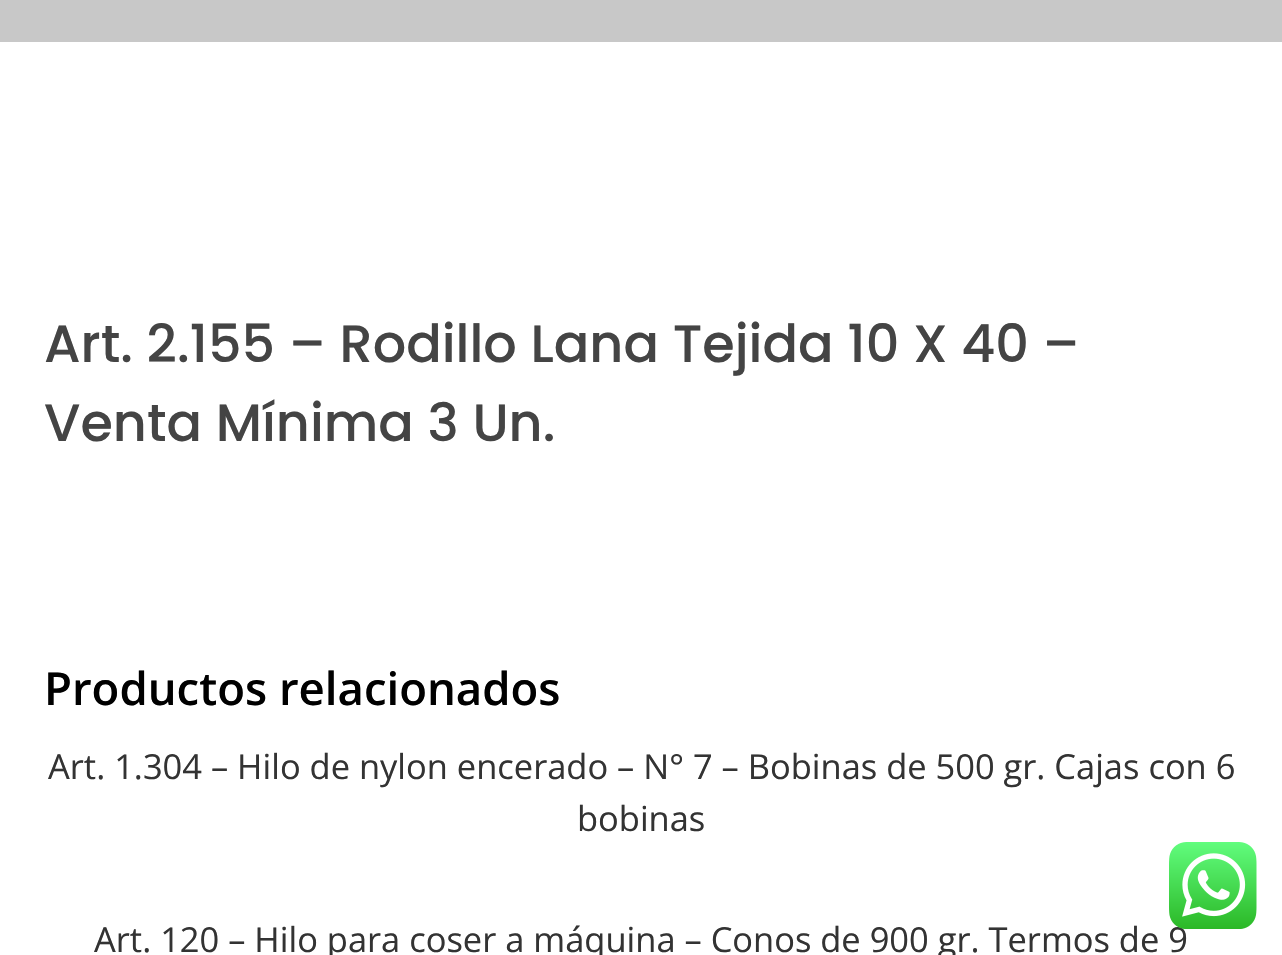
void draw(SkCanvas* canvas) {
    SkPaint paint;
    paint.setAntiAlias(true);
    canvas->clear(0xFFFFFFFF);
    paint.setColor(0xFFC8C8C8);
    canvas->drawRect(SkRect::MakeXYWH(0, 0, 1282, 42), paint);
    SkFont font1(fontMgr->matchFamilyStyle("Poppins", SkFontStyle(500, SkFontStyle::kNormal_Width, SkFontStyle::kUpright_Slant)), 52.5f);
    font1.setSubpixel(true);
    paint.setColor(0xFF444444);
    canvas->drawString("Art. 2.155 – Rodillo Lana Tejida 10 X 40 –", 44, 362, font1, paint);
    canvas->drawString("Venta Mínima 3 Un.", 44, 441, font1, paint);
    SkFont font2(fontMgr->matchFamilyStyle("Open Sans", SkFontStyle(600, SkFontStyle::kNormal_Width, SkFontStyle::kUpright_Slant)), 45.5f);
    font2.setSubpixel(true);
    paint.setColor(0xFF000000);
    canvas->drawString("Productos relacionados", 44, 705, font2, paint);
    SkFont font3(fontMgr->matchFamilyStyle("Open Sans", SkFontStyle::Normal()), 34.45f);
    font3.setSubpixel(true);
    paint.setColor(0xFF333333);
    canvas->drawString("Art. 1.304 – Hilo de nylon encerado – N° 7 – Bobinas de 500 gr. Cajas con 6", 48, 779, font3, paint);
    canvas->drawString("bobinas", 577, 831, font3, paint);
    canvas->drawString("Art. 120 – Hilo para coser a máquina – Conos de 900 gr. Termos de 9", 94, 952, font3, paint);
    canvas->drawImageRect(SkImages::DeferredFromEncodedData(SkData::MakeFromFileName("img1.png")), SkRect::MakeXYWH(1169, 842, 88, 87), SkSamplingOptions());
}
